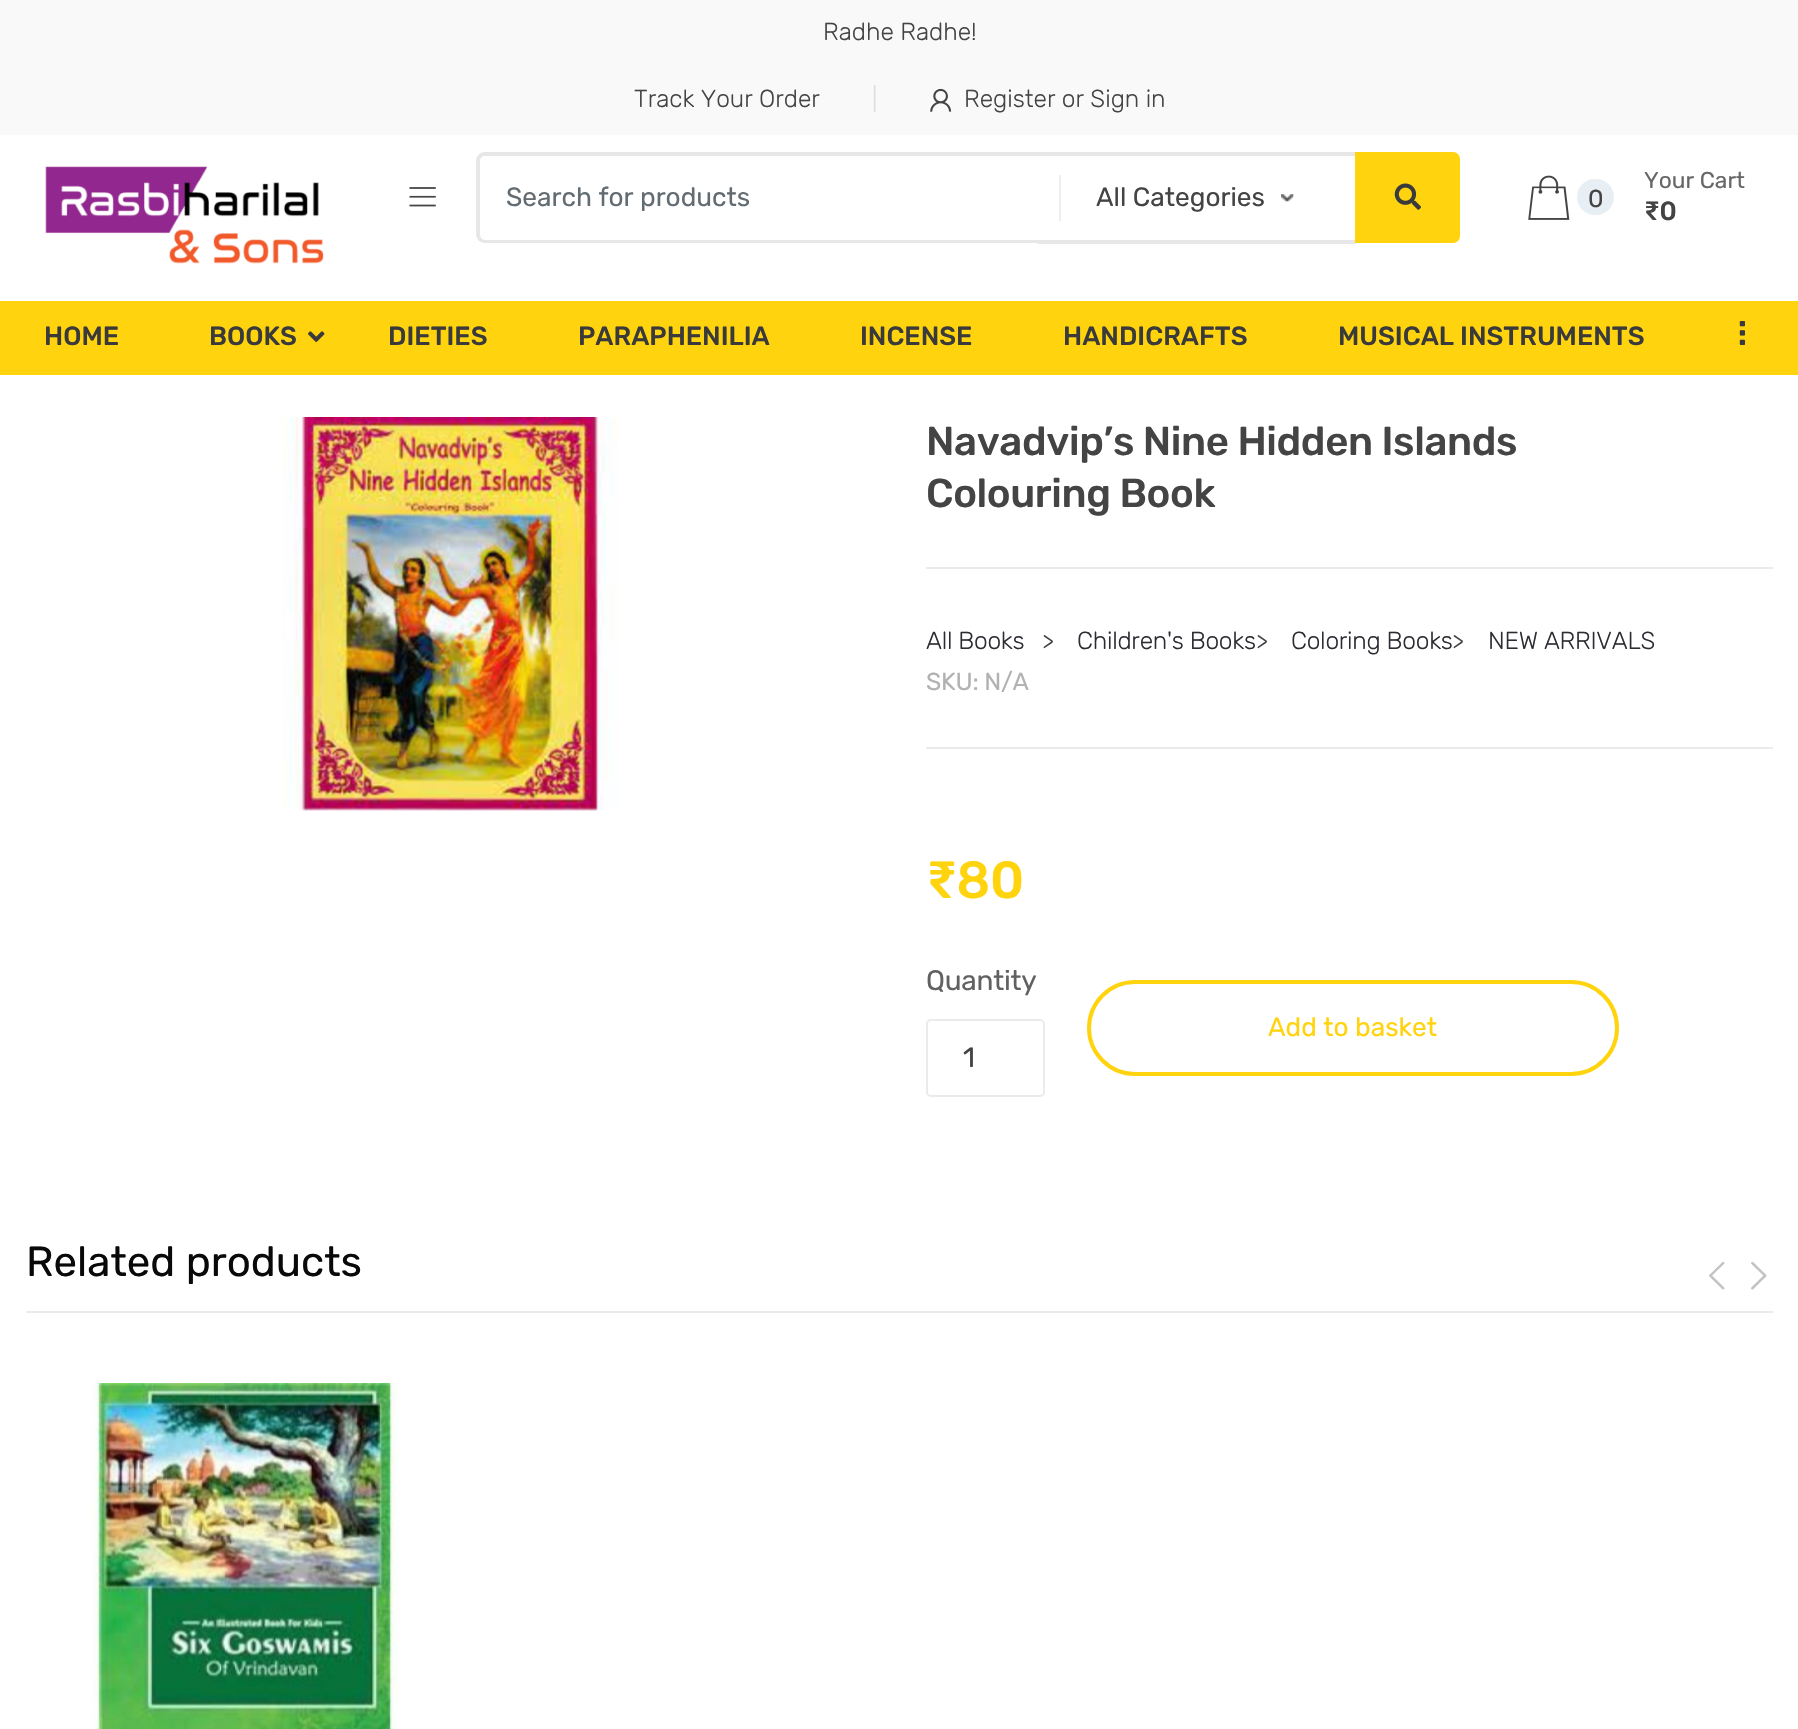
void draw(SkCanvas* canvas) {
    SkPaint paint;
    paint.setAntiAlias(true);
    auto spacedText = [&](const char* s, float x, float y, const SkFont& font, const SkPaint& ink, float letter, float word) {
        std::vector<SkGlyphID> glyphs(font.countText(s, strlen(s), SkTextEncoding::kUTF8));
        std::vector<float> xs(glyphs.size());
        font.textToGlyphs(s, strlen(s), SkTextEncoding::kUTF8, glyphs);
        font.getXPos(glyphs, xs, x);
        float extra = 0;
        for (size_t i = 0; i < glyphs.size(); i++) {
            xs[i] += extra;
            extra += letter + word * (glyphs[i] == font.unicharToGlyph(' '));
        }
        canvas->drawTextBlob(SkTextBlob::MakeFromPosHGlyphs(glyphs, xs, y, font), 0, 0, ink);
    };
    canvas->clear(0xFFFFFFFF);
    paint.setColor(0xFFF9F9F9);
    canvas->drawRect(SkRect::MakeXYWH(0, 0, 1798, 135), paint);
    SkFont font1(fontMgr->matchFamilyStyle("Rubik", SkFontStyle(300, SkFontStyle::kNormal_Width, SkFontStyle::kUpright_Slant)), 24.5f);
    font1.setSubpixel(true);
    paint.setColor(0xFF444444);
    canvas->drawString("Radhe Radhe!", 823, 40, font1, paint);
    canvas->drawString("Track Your Order", 634, 107, font1, paint);
    paint.setColor(0xFFDEDEDE);
    canvas->drawString("|", 872, 107, font1, paint);
    canvas->drawImageRect(SkImages::DeferredFromEncodedData(SkData::MakeFromFileName("img1.png")), SkRect::MakeXYWH(930, 88, 22, 24), SkSamplingOptions());
    paint.setColor(0xFF444444);
    canvas->drawString("Register or Sign in", 964, 107, font1, paint);
    canvas->drawImageRect(SkImages::DeferredFromEncodedData(SkData::MakeFromFileName("img2.png")), SkRect::MakeXYWH(45, 166, 279, 98), SkSamplingOptions());
    canvas->drawImageRect(SkImages::DeferredFromEncodedData(SkData::MakeFromFileName("img3.png")), SkRect::MakeXYWH(409, 187, 27, 20), SkSamplingOptions());
    paint.setColor(0xFFE7E7E7);
    canvas->drawPath(SkPathBuilder(SkPathFillType::kEvenOdd).moveTo(485, 152).lineTo(1038, 152).lineTo(1038, 243).lineTo(485, 243).cubicTo(480, 243, 476, 239, 476, 234).lineTo(476, 161).cubicTo(476, 156, 480, 152, 485, 152).close().moveTo(485, 156).lineTo(1038, 156).lineTo(1038, 240).lineTo(485, 240).cubicTo(482, 240, 480, 237, 480, 234).lineTo(480, 161).cubicTo(480, 158, 482, 156, 485, 156).close().detach(), paint);
    SkFont font2(fontMgr->matchFamilyStyle("Rubik", SkFontStyle::Normal()), 26.25f);
    font2.setSubpixel(true);
    paint.setColor(0xFF636C72);
    canvas->drawString("Search for products", 506, 206, font2, paint);
    paint.setColor(0xFFE7E7E7);
    canvas->drawRect(SkRect::MakeXYWH(1038, 152, 318, 4), paint);
    canvas->drawRect(SkRect::MakeXYWH(1038, 240, 318, 4), paint);
    canvas->drawImageRect(SkImages::DeferredFromEncodedData(SkData::MakeFromFileName("img4.png")), SkRect::MakeXYWH(1281, 194, 13, 8), SkSamplingOptions());
    paint.setColor(0xFFEEEEEE);
    canvas->drawRect(SkRect::MakeXYWH(1059, 175, 2, 46), paint);
    paint.setColor(0xFF444444);
    canvas->drawString("All Categories", 1096, 206, font2, paint);
    paint.setColor(0xFFFFD40E);
    canvas->drawPath(SkPathBuilder().moveTo(1356, 153).lineTo(1453, 153).cubicTo(1456.5f, 153, 1459, 155.5f, 1459, 159).lineTo(1459, 236).cubicTo(1459, 239.5f, 1456.5f, 242, 1453, 242).lineTo(1356, 242).close().detach(), paint);
    paint.setStyle(SkPaint::kStroke_Style);
    paint.setStrokeWidth(2);
    canvas->drawPath(SkPathBuilder().moveTo(1356, 153).lineTo(1453, 153).cubicTo(1456.5f, 153, 1459, 155.5f, 1459, 159).lineTo(1459, 236).cubicTo(1459, 239.5f, 1456.5f, 242, 1453, 242).lineTo(1356, 242).close().detach(), paint);
    canvas->drawImageRect(SkImages::DeferredFromEncodedData(SkData::MakeFromFileName("img5.png")), SkRect::MakeXYWH(1394, 183, 27, 27), SkSamplingOptions());
    canvas->drawImageRect(SkImages::DeferredFromEncodedData(SkData::MakeFromFileName("img6.png")), SkRect::MakeXYWH(1528, 175, 42, 45), SkSamplingOptions());
    paint.setStyle(SkPaint::kFill_Style);
    paint.setColor(0xFFE8EFF4);
    canvas->drawRoundRect(SkRect::MakeXYWH(1577, 179, 37, 36), 18, 18, paint);
    SkFont font3(fontMgr->matchFamilyStyle("Rubik", SkFontStyle::Normal()), 24.5f);
    font3.setSubpixel(true);
    paint.setColor(0xFF444444);
    spacedText("0", 1588, 207, font3, paint, -2, 0);
    SkFont font4(fontMgr->matchFamilyStyle("Rubik", SkFontStyle::Normal()), 22.75f);
    font4.setSubpixel(true);
    paint.setColor(0xFF676767);
    canvas->drawString("Your Cart", 1644, 188, font4, paint);
    SkFont font5(fontMgr->matchFamilyStyle("Rubik", SkFontStyle(500, SkFontStyle::kNormal_Width, SkFontStyle::kUpright_Slant)), 26.25f);
    font5.setSubpixel(true);
    paint.setColor(0xFF444444);
    canvas->drawString("₹0", 1644, 220, font5, paint);
    paint.setColor(0xFFFFD40E);
    canvas->drawRect(SkRect::MakeXYWH(0, 301, 1798, 74), paint);
    paint.setColor(0xFF3A3A3A);
    canvas->drawString("HOME", 44, 345, font5, paint);
    canvas->drawString("BOOKS", 209, 345, font5, paint);
    canvas->drawImageRect(SkImages::DeferredFromEncodedData(SkData::MakeFromFileName("img7.png")), SkRect::MakeXYWH(308, 331, 17, 11), SkSamplingOptions());
    canvas->drawString("DIETIES", 388, 345, font5, paint);
    canvas->drawString("PARAPHENILIA", 578, 345, font5, paint);
    canvas->drawString("INCENSE", 860, 345, font5, paint);
    canvas->drawString("HANDICRAFTS", 1063, 345, font5, paint);
    canvas->drawString("MUSICAL INSTRUMENTS", 1338, 345, font5, paint);
    SkFont font6(fontMgr->matchFamilyStyle("Rubik", SkFontStyle(500, SkFontStyle::kNormal_Width, SkFontStyle::kUpright_Slant)), 35);
    font6.setSubpixel(true);
    canvas->save();
    canvas->rotate(-90, 1745, 347);
    canvas->drawString("...", 1745, 347, font6, paint);
    canvas->restore();
    canvas->drawImageRect(SkImages::DeferredFromEncodedData(SkData::MakeFromFileName("img8.png")), SkRect::MakeXYWH(282, 417, 336, 394), SkSamplingOptions());
    paint.setColor(0xFFEBEBEB);
    canvas->drawRect(SkRect::MakeXYWH(926, 567, 847, 2), paint);
    SkFont font7(fontMgr->matchFamilyStyle("Rubik", SkFontStyle(500, SkFontStyle::kNormal_Width, SkFontStyle::kUpright_Slant)), 40.25f);
    font7.setSubpixel(true);
    paint.setColor(0xFF444444);
    spacedText("Navadvip’s Nine Hidden Islands", 926, 455, font7, paint, -0.4f, 0);
    spacedText("Colouring Book", 926, 507, font7, paint, -0.4f, 0);
    paint.setColor(0xFFEBEBEB);
    canvas->drawRect(SkRect::MakeXYWH(926, 747, 847, 2), paint);
    paint.setColor(0xFF2C2D33);
    spacedText("All Books", 926, 649, font1, paint, -0.25f, 0);
    paint.setColor(0xFF444444);
    spacedText(">", 1042, 649, font1, paint, -0.25f, 0);
    paint.setColor(0xFF2C2D33);
    spacedText("Children's Books", 1077, 649, font1, paint, -0.25f, 0);
    paint.setColor(0xFF444444);
    spacedText(">", 1256, 649, font1, paint, -0.25f, 0);
    paint.setColor(0xFF2C2D33);
    spacedText("Coloring Books", 1291, 649, font1, paint, -0.25f, 0);
    paint.setColor(0xFF444444);
    spacedText(">", 1452, 649, font1, paint, -0.25f, 0);
    paint.setColor(0xFF2C2D33);
    spacedText("NEW ARRIVALS", 1488, 649, font1, paint, -0.25f, 0);
    paint.setColor(0xFFB3B2B2);
    spacedText("SKU: N/A", 926, 690, font3, paint, -0.25f, 0);
    SkFont font8(fontMgr->matchFamilyStyle("Rubik", SkFontStyle(500, SkFontStyle::kNormal_Width, SkFontStyle::kUpright_Slant)), 52);
    font8.setSubpixel(true);
    paint.setColor(0xFFFFD40E);
    spacedText("₹80", 926, 898, font8, paint, -0.5f, 0);
    SkFont font9(fontMgr->matchFamilyStyle("Rubik", SkFontStyle::Normal()), 28);
    font9.setSubpixel(true);
    paint.setColor(0xFF626060);
    spacedText("Quantity", 926, 990, font9, paint, -0.25f, 0);
    paint.setStyle(SkPaint::kStroke_Style);
    paint.setColor(0xFFEBEBEB);
    canvas->drawRoundRect(SkRect::MakeXYWH(927, 1020, 117, 76), 4, 4, paint);
    paint.setStyle(SkPaint::kFill_Style);
    paint.setColor(0xFF444444);
    canvas->drawString("1", 963, 1067, font9, paint);
    paint.setStyle(SkPaint::kStroke_Style);
    paint.setStrokeWidth(4);
    paint.setColor(0xFFFFD40E);
    canvas->drawRoundRect(SkRect::MakeXYWH(1089, 982, 528, 92), 46, 46, paint);
    paint.setStyle(SkPaint::kFill_Style);
    canvas->drawString("Add to basket", 1268, 1036, font2, paint);
    paint.setColor(0xFFEBEBEB);
    canvas->drawRect(SkRect::MakeXYWH(26, 1311, 1747, 2), paint);
    SkFont font10(fontMgr->matchFamilyStyle("Rubik", SkFontStyle::Normal()), 42);
    font10.setSubpixel(true);
    paint.setColor(0xFF090909);
    canvas->drawString("Related products", 26, 1276, font10, paint);
    canvas->drawImageRect(SkImages::DeferredFromEncodedData(SkData::MakeFromFileName("img9.png")), SkRect::MakeXYWH(1709, 1261, 16, 29), SkSamplingOptions());
    canvas->drawImageRect(SkImages::DeferredFromEncodedData(SkData::MakeFromFileName("img10.png")), SkRect::MakeXYWH(1751, 1261, 16, 29), SkSamplingOptions());
    canvas->drawImageRect(SkImages::DeferredFromEncodedData(SkData::MakeFromFileName("img11.png")), SkRect::MakeXYWH(92, 1383, 307, 346), SkSamplingOptions());
}
